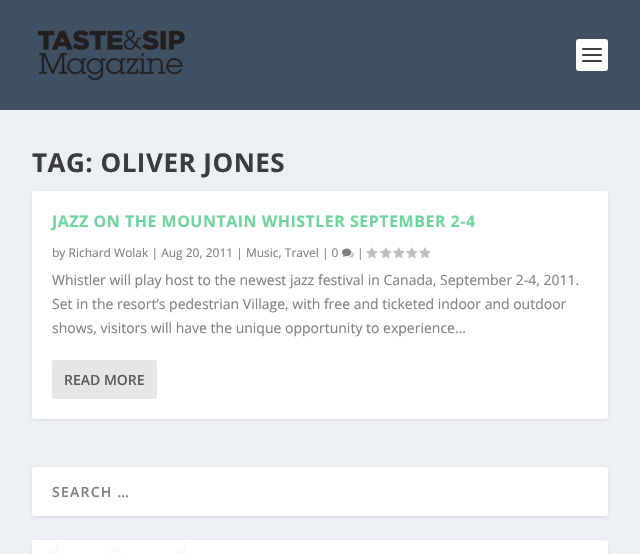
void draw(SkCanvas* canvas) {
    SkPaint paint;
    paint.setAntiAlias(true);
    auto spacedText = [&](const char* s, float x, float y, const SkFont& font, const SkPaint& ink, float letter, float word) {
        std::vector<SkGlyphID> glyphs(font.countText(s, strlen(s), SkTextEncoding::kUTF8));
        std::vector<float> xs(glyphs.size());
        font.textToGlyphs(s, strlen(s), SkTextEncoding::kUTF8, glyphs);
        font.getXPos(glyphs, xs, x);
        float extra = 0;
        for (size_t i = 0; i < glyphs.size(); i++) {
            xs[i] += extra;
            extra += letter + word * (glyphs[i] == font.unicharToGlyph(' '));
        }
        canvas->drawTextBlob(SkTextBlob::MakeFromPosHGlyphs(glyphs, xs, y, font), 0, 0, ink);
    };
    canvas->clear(0xFFECF0F5);
    paint.setColor(0xFF3E5062);
    canvas->drawRect(SkRect::MakeXYWH(0, 0, 640, 110), paint);
    canvas->drawImageRect(SkImages::DeferredFromEncodedData(SkData::MakeFromFileName("img1.png")), SkRect::MakeXYWH(37, 30, 148, 50), SkSamplingOptions());
    paint.setColor(0xFFFFFFFF);
    canvas->drawRoundRect(SkRect::MakeXYWH(576, 39, 32, 32), 3, 3, paint);
    paint.setColor(0xFF404040);
    canvas->drawRoundRect(SkRect::MakeXYWH(582, 48, 20, 2), 1, 1, paint);
    canvas->drawRoundRect(SkRect::MakeXYWH(582, 54, 20, 2), 1, 1, paint);
    canvas->drawRoundRect(SkRect::MakeXYWH(582, 60, 20, 2), 1, 1, paint);
    SkFont font1(fontMgr->matchFamilyStyle("Open Sans", SkFontStyle::Bold()), 26);
    font1.setSubpixel(true);
    paint.setColor(0xFF3B3C3D);
    spacedText("TAG: OLIVER JONES", 32, 172, font1, paint, 0.5f, 0);
    paint.setColor(0x1A000000);
    paint.setMaskFilter(SkMaskFilter::MakeBlur(kNormal_SkBlurStyle, 1.5f));
    canvas->drawRoundRect(SkRect::MakeXYWH(32, 192, 576, 228), 3, 3, paint);
    paint.setMaskFilter(nullptr);
    paint.setColor(0xFFFFFFFF);
    canvas->drawRoundRect(SkRect::MakeXYWH(32, 191, 576, 228), 3, 3, paint);
    SkFont font2(fontMgr->matchFamilyStyle("Open Sans", SkFontStyle::Bold()), 16);
    font2.setSubpixel(true);
    paint.setColor(0xFF6DD69C);
    spacedText("JAZZ ON THE MOUNTAIN WHISTLER SEPTEMBER 2-4", 52, 227, font2, paint, 0.5f, 0);
    SkFont font3(fontMgr->matchFamilyStyle("Open Sans", SkFontStyle::Normal()), 12);
    font3.setSubpixel(true);
    paint.setColor(0xFF808080);
    canvas->drawString("by Richard Wolak | Aug 20, 2011 | Music, Travel | 0", 52, 257, font3, paint);
    canvas->drawImageRect(SkImages::DeferredFromEncodedData(SkData::MakeFromFileName("img2.png")), SkRect::MakeXYWH(342, 248, 12, 10), SkSamplingOptions());
    canvas->drawString("|", 357, 257, font3, paint);
    canvas->drawImageRect(SkImages::DeferredFromEncodedData(SkData::MakeFromFileName("img3.png")), SkRect::MakeXYWH(366, 247, 12, 12), SkSamplingOptions());
    canvas->drawImageRect(SkImages::DeferredFromEncodedData(SkData::MakeFromFileName("img3.png")), SkRect::MakeXYWH(380, 247, 12, 12), SkSamplingOptions());
    canvas->drawImageRect(SkImages::DeferredFromEncodedData(SkData::MakeFromFileName("img3.png")), SkRect::MakeXYWH(393, 247, 12, 12), SkSamplingOptions());
    canvas->drawImageRect(SkImages::DeferredFromEncodedData(SkData::MakeFromFileName("img3.png")), SkRect::MakeXYWH(406, 247, 12, 12), SkSamplingOptions());
    canvas->drawImageRect(SkImages::DeferredFromEncodedData(SkData::MakeFromFileName("img3.png")), SkRect::MakeXYWH(419, 247, 12, 12), SkSamplingOptions());
    SkFont font4(fontMgr->matchFamilyStyle("Open Sans", SkFontStyle::Normal()), 14);
    font4.setSubpixel(true);
    canvas->drawString("Whistler will play host to the newest jazz festival in Canada, September 2-4, 2011.", 52, 285, font4, paint);
    canvas->drawString("Set in the resort’s pedestrian Village, with free and ticketed indoor and outdoor", 52, 309, font4, paint);
    canvas->drawString("shows, visitors will have the unique opportunity to experience...", 52, 333, font4, paint);
    paint.setColor(0xFFE6E6E6);
    canvas->drawRoundRect(SkRect::MakeXYWH(52, 360, 105, 39), 3, 3, paint);
    SkFont font5(fontMgr->matchFamilyStyle("Open Sans", SkFontStyle(600, SkFontStyle::kNormal_Width, SkFontStyle::kUpright_Slant)), 14);
    font5.setSubpixel(true);
    paint.setColor(0xFF5C5C5C);
    canvas->drawString("READ MORE", 64, 385, font5, paint);
    paint.setColor(0x1A000000);
    paint.setMaskFilter(SkMaskFilter::MakeBlur(kNormal_SkBlurStyle, 1.5f));
    canvas->drawRoundRect(SkRect::MakeXYWH(32, 468, 576, 49), 3, 3, paint);
    paint.setMaskFilter(nullptr);
    paint.setColor(0xFFFFFFFF);
    canvas->drawRoundRect(SkRect::MakeXYWH(32, 467, 576, 49), 3, 3, paint);
    paint.setColor(0xFF808080);
    spacedText("SEARCH …", 52, 497, font5, paint, 1.25f, 0);
    paint.setColor(0x1A000000);
    paint.setMaskFilter(SkMaskFilter::MakeBlur(kNormal_SkBlurStyle, 1.5f));
    canvas->drawRoundRect(SkRect::MakeXYWH(32, 541, 576, 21), 3, 3, paint);
    paint.setMaskFilter(nullptr);
    paint.setColor(0xFFFFFFFF);
    canvas->drawRoundRect(SkRect::MakeXYWH(32, 540, 576, 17), 3, 3, paint);
    canvas->drawImageRect(SkImages::DeferredFromEncodedData(SkData::MakeFromFileName("img4.png")), SkRect::MakeXYWH(32, 540, 154, 14), SkSamplingOptions());
}
